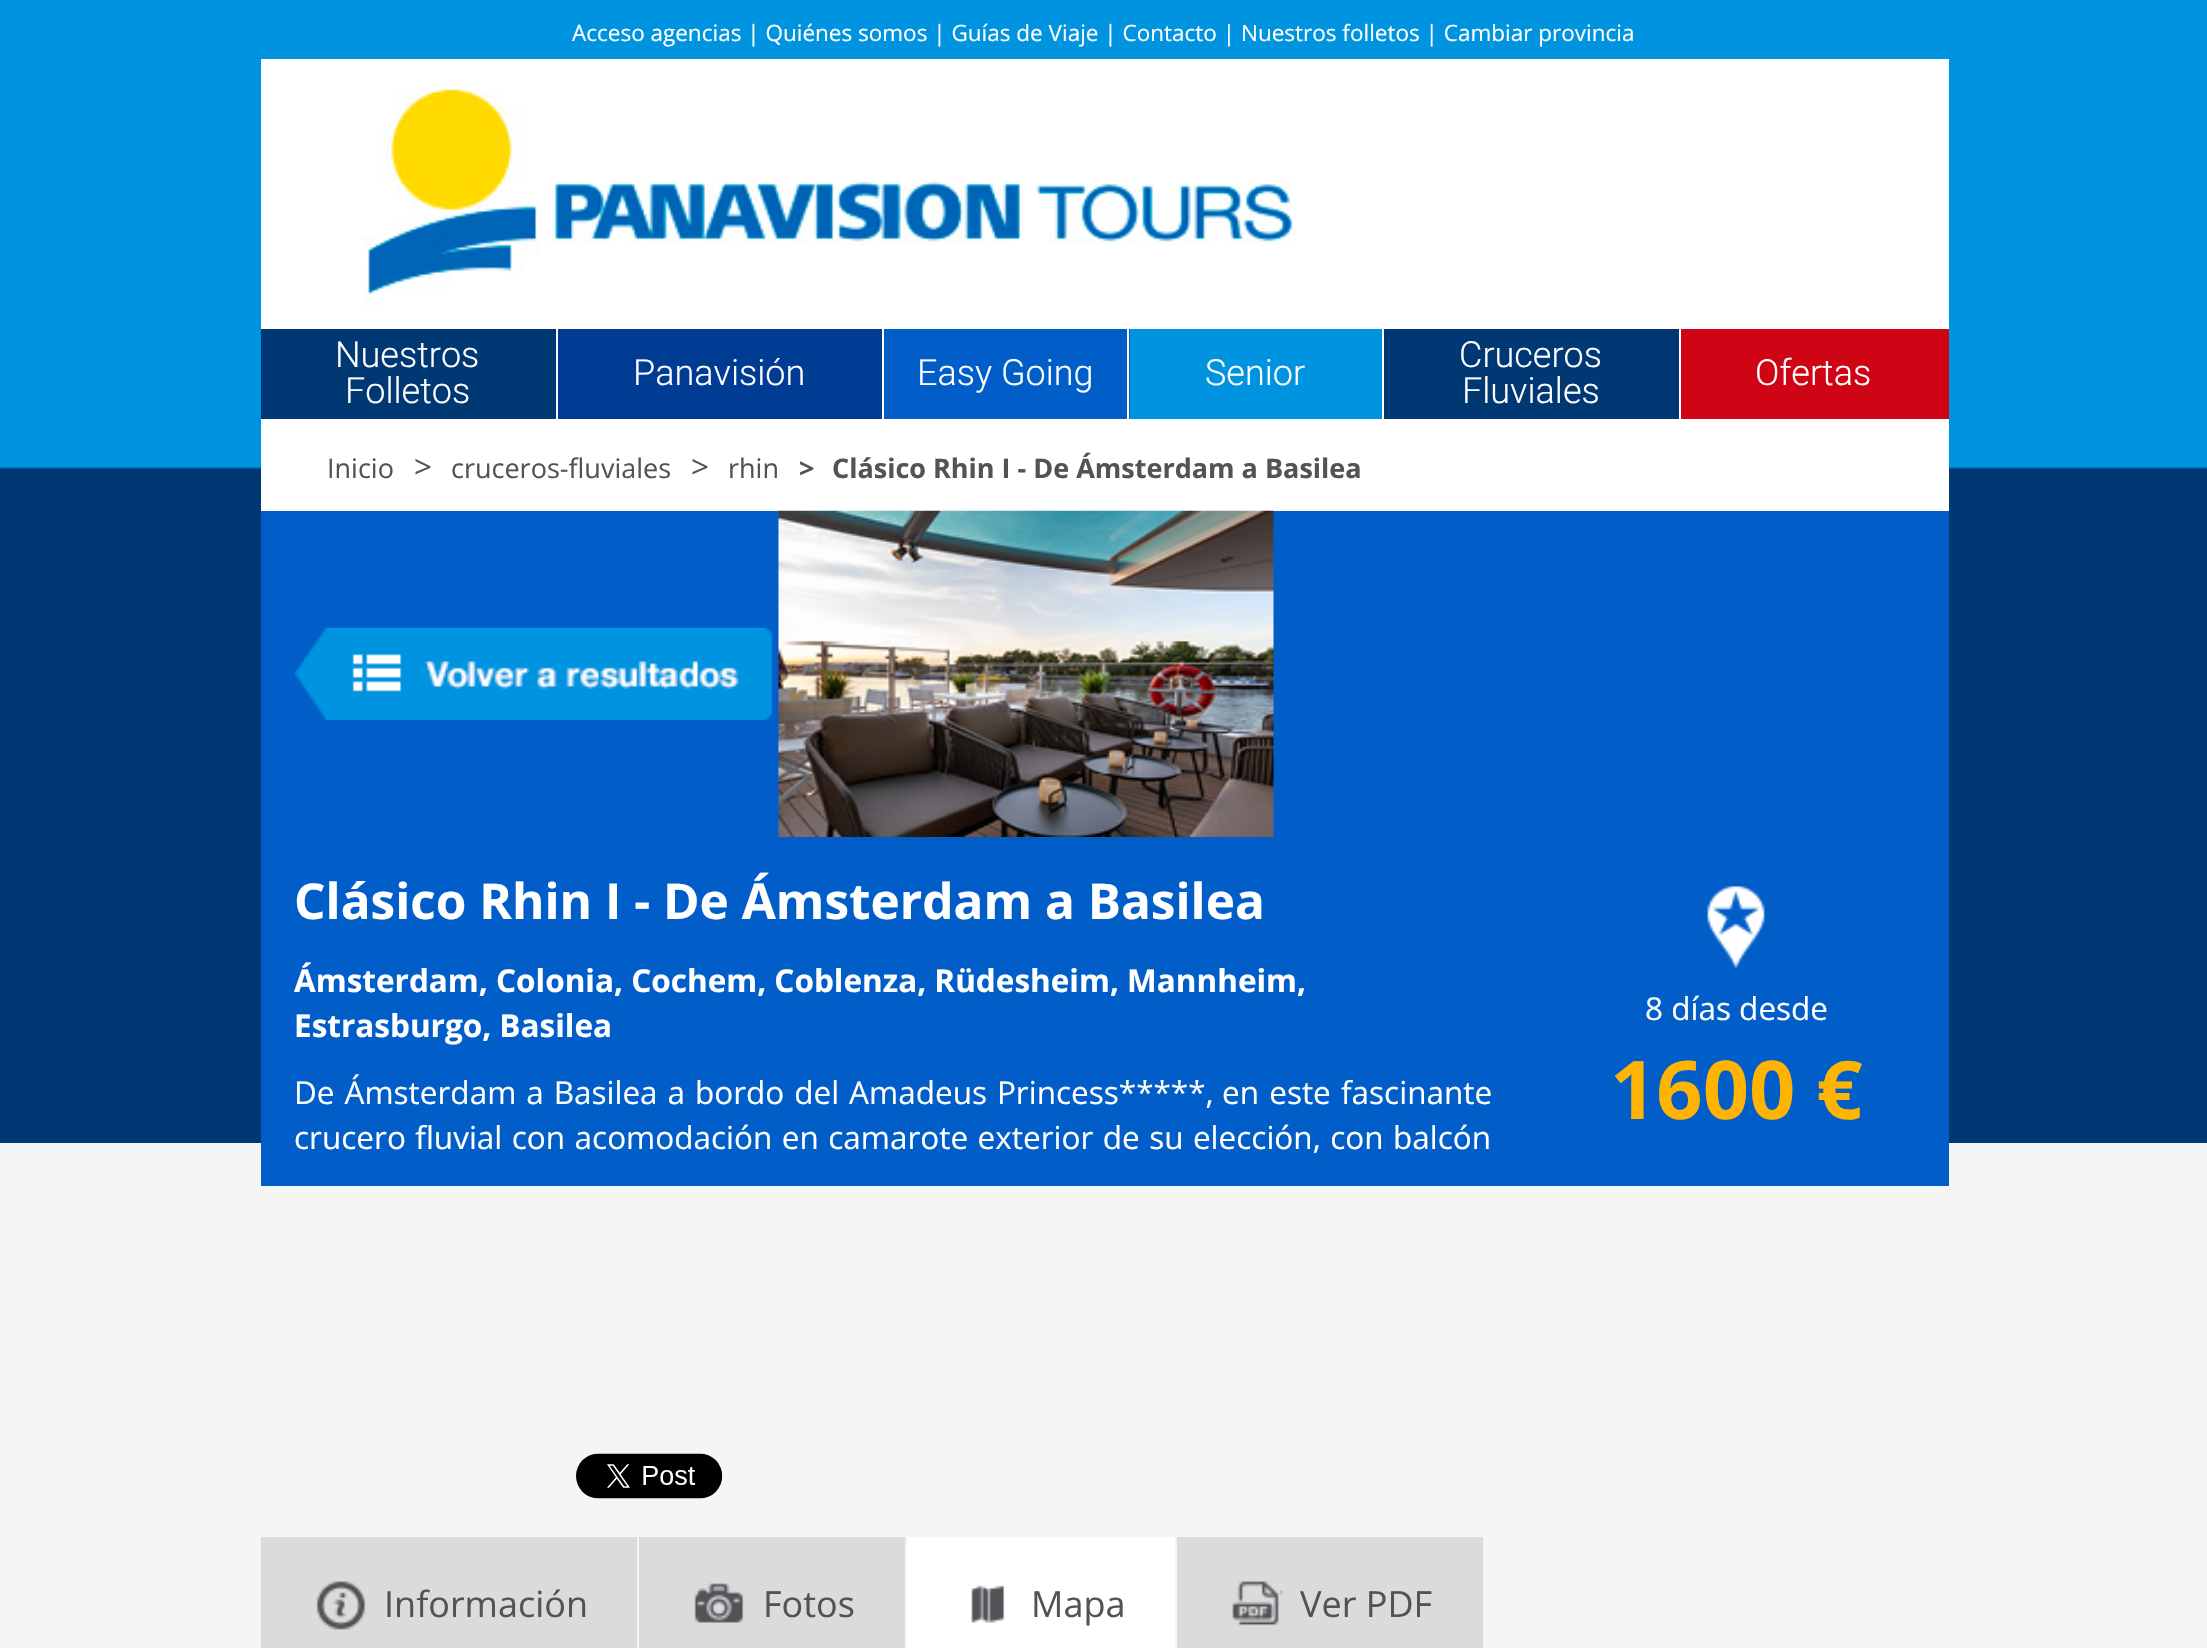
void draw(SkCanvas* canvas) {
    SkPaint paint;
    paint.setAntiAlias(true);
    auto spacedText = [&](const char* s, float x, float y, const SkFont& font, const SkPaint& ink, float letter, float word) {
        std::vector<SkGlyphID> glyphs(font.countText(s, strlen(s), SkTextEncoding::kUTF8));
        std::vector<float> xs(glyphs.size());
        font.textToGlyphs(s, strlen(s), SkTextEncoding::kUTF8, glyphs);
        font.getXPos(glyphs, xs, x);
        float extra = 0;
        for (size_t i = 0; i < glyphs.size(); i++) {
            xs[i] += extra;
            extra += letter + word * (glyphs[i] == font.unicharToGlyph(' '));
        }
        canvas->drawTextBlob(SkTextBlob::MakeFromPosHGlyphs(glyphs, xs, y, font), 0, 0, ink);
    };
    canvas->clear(0xFFF5F5F5);
    canvas->drawImageRect(SkImages::DeferredFromEncodedData(SkData::MakeFromFileName("img1.png")), SkRect::MakeXYWH(0, 0, 2207, 1143), SkSamplingOptions());
    SkFont font1(fontMgr->matchFamilyStyle("Open Sans", SkFontStyle::Normal()), 22.5f);
    font1.setSubpixel(true);
    paint.setColor(0xFFFFFFFF);
    canvas->drawString("Acceso agencias | Quiénes somos | Guías de Viaje | Contacto | Nuestros folletos | Cambiar provincia", 572, 41, font1, paint);
    canvas->drawRect(SkRect::MakeXYWH(261, 59, 1688, 452), paint);
    canvas->drawImageRect(SkImages::DeferredFromEncodedData(SkData::MakeFromFileName("img2.png")), SkRect::MakeXYWH(362, 81, 931, 227), SkSamplingOptions());
    paint.setColor(0xFF003873);
    canvas->drawRect(SkRect::MakeXYWH(261, 329, 295, 90), paint);
    SkFont font2(fontMgr->matchFamilyStyle("Roboto", SkFontStyle(300, SkFontStyle::kNormal_Width, SkFontStyle::kUpright_Slant)), 36);
    font2.setSubpixel(true);
    paint.setColor(0xFFFFFFFF);
    canvas->drawString("Nuestros", 335, 367, font2, paint);
    canvas->drawString("Folletos", 345, 403, font2, paint);
    paint.setColor(0xFF003C94);
    canvas->drawRect(SkRect::MakeXYWH(558, 329, 324, 90), paint);
    paint.setColor(0xFFFFFFFF);
    canvas->drawString("Panavisión", 633, 385, font2, paint);
    paint.setColor(0xFF015EC8);
    canvas->drawRect(SkRect::MakeXYWH(884, 329, 246, 90), paint);
    paint.setColor(0xFFFFFFFF);
    canvas->drawRect(SkRect::MakeXYWH(1127, 329, 2, 90), paint);
    canvas->drawString("Easy Going", 917, 385, font2, paint);
    paint.setColor(0xFF0093E0);
    canvas->drawRect(SkRect::MakeXYWH(1130, 329, 252, 90), paint);
    paint.setColor(0xFFFFFFFF);
    canvas->drawString("Senior", 1205, 385, font2, paint);
    paint.setColor(0xFF003873);
    canvas->drawRect(SkRect::MakeXYWH(1384, 329, 295, 90), paint);
    paint.setColor(0xFFFFFFFF);
    canvas->drawString("Cruceros", 1459, 367, font2, paint);
    canvas->drawString("Fluviales", 1462, 403, font2, paint);
    paint.setColor(0xFFCF0515);
    canvas->drawRect(SkRect::MakeXYWH(1681, 329, 268, 90), paint);
    paint.setColor(0xFFFFFFFF);
    canvas->drawString("Ofertas", 1755, 385, font2, paint);
    SkFont font3(fontMgr->matchFamilyStyle("Open Sans", SkFontStyle::Normal()), 27);
    font3.setSubpixel(true);
    paint.setColor(0xFF515357);
    canvas->drawString("Inicio", 327, 478, font3, paint);
    SkFont font4(fontMgr->matchFamilyStyle("Open Sans", SkFontStyle::Normal()), 31.5f);
    font4.setSubpixel(true);
    canvas->drawString(">", 414, 478, font4, paint);
    canvas->drawString("cruceros-fluviales", 451, 478, font3, paint);
    canvas->drawString(">", 691, 478, font4, paint);
    canvas->drawString("rhin", 728, 478, font3, paint);
    SkFont font5(fontMgr->matchFamilyStyle("Open Sans", SkFontStyle::Bold()), 27);
    font5.setSubpixel(true);
    canvas->drawString(">", 799, 478, font5, paint);
    canvas->drawString("Clásico Rhin I - De Ámsterdam a Basilea", 832, 478, font5, paint);
    paint.setColor(0xFF015EC8);
    canvas->drawRect(SkRect::MakeXYWH(261, 511, 1688, 675), paint);
    canvas->drawImageRect(SkImages::DeferredFromEncodedData(SkData::MakeFromFileName("img3.png")), SkRect::MakeXYWH(294, 627, 478, 93), SkSamplingOptions());
    canvas->drawImageRect(SkImages::DeferredFromEncodedData(SkData::MakeFromFileName("img4.png")), SkRect::MakeXYWH(778, 510, 496, 327), SkSamplingOptions());
    SkFont font6(fontMgr->matchFamilyStyle("Open Sans", SkFontStyle::Bold()), 49.5f);
    font6.setSubpixel(true);
    paint.setColor(0xFFFFFFFF);
    canvas->drawString("Clásico Rhin I - De Ámsterdam a Basilea", 294, 919, font6, paint);
    SkFont font7(fontMgr->matchFamilyStyle("Open Sans", SkFontStyle::Bold()), 31.5f);
    font7.setSubpixel(true);
    canvas->drawString("Ámsterdam, Colonia, Cochem, Coblenza, Rüdesheim, Mannheim,", 294, 992, font7, paint);
    canvas->drawString("Estrasburgo, Basilea", 294, 1037, font7, paint);
    spacedText("De Ámsterdam a Basilea a bordo del Amadeus Princess*****,", 294, 1104, font4, paint, 0, 1.75f);
    spacedText("en este fascinante", 1222, 1104, font4, paint, 0, 2);
    spacedText("crucero fluvial con acomodación en camarote exterior de su elección, con balcón", 294, 1149, font4, paint, 0, 1.25f);
    canvas->drawImageRect(SkImages::DeferredFromEncodedData(SkData::MakeFromFileName("img5.png")), SkRect::MakeXYWH(1707, 886, 58, 82), SkSamplingOptions());
    canvas->drawString("8 días desde", 1645, 1020, font4, paint);
    SkFont font8(fontMgr->matchFamilyStyle("Open Sans", SkFontStyle::Bold()), 81);
    font8.setSubpixel(true);
    paint.setColor(0xFFFFB302);
    canvas->drawString("1600 €", 1610, 1119, font8, paint);
    canvas->drawImageRect(SkImages::DeferredFromEncodedData(SkData::MakeFromFileName("img6.png")), SkRect::MakeXYWH(576, 1453, 147, 46), SkSamplingOptions());
    paint.setColor(0xFFDBDBDB);
    canvas->drawRect(SkRect::MakeXYWH(261, 1537, 376, 111), paint);
    canvas->drawImageRect(SkImages::DeferredFromEncodedData(SkData::MakeFromFileName("img7.png")), SkRect::MakeXYWH(316, 1581, 50, 49), SkSamplingOptions());
    SkFont font9(fontMgr->matchFamilyStyle("Open Sans", SkFontStyle::Normal()), 36);
    font9.setSubpixel(true);
    paint.setColor(0xFF515357);
    canvas->drawString("Información", 384, 1617, font9, paint);
    paint.setColor(0xFFDBDBDB);
    canvas->drawRect(SkRect::MakeXYWH(639, 1537, 266, 111), paint);
    canvas->drawImageRect(SkImages::DeferredFromEncodedData(SkData::MakeFromFileName("img8.png")), SkRect::MakeXYWH(694, 1583, 50, 40), SkSamplingOptions());
    paint.setColor(0xFF515357);
    canvas->drawString("Fotos", 763, 1617, font9, paint);
    paint.setColor(0xFFFFFFFF);
    canvas->drawRect(SkRect::MakeXYWH(907, 1537, 268, 111), paint);
    canvas->drawImageRect(SkImages::DeferredFromEncodedData(SkData::MakeFromFileName("img9.png")), SkRect::MakeXYWH(971, 1585, 34, 38), SkSamplingOptions());
    paint.setColor(0xFF515357);
    canvas->drawString("Mapa", 1031, 1617, font9, paint);
    paint.setColor(0xFFDBDBDB);
    canvas->drawRect(SkRect::MakeXYWH(1177, 1537, 306, 111), paint);
    canvas->drawImageRect(SkImages::DeferredFromEncodedData(SkData::MakeFromFileName("img10.png")), SkRect::MakeXYWH(1232, 1581, 51, 45), SkSamplingOptions());
    paint.setColor(0xFF515357);
    canvas->drawString("Ver PDF", 1300, 1617, font9, paint);
}
